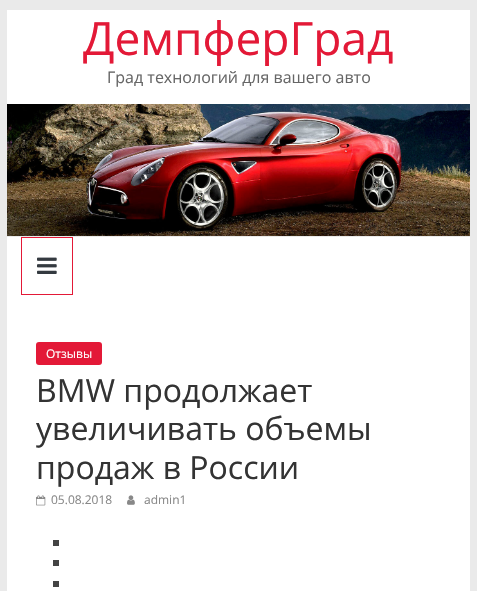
void draw(SkCanvas* canvas) {
    SkPaint paint;
    paint.setAntiAlias(true);
    canvas->clear(0xFFEAEAEA);
    paint.setColor(0xFFFFFFFF);
    canvas->drawRect(SkRect::MakeXYWH(7, 10, 463, 581), paint);
    SkFont font1(fontMgr->matchFamilyStyle("Open Sans", SkFontStyle::Normal()), 46);
    font1.setSubpixel(true);
    paint.setColor(0xFFE31937);
    canvas->drawString("ДемпферГрад", 83, 55, font1, paint);
    SkFont font2(fontMgr->matchFamilyStyle("Open Sans", SkFontStyle::Normal()), 16);
    font2.setSubpixel(true);
    paint.setColor(0xFF666666);
    canvas->drawString("Град технологий для вашего авто", 107, 83, font2, paint);
    canvas->drawImageRect(SkImages::DeferredFromEncodedData(SkData::MakeFromFileName("img1.png")), SkRect::MakeXYWH(7, 104, 463, 132), SkSamplingOptions());
    paint.setColor(0xFFEAEAEA);
    canvas->drawRect(SkRect::MakeXYWH(7, 236, 463, 1), paint);
    paint.setStyle(SkPaint::kStroke_Style);
    paint.setStrokeWidth(1);
    paint.setColor(0xFFE31937);
    canvas->drawRect(SkRect::MakeXYWH(21.5f, 237.5f, 51, 57), paint);
    canvas->drawImageRect(SkImages::DeferredFromEncodedData(SkData::MakeFromFileName("img2.png")), SkRect::MakeXYWH(37, 257, 20, 17), SkSamplingOptions());
    paint.setStyle(SkPaint::kFill_Style);
    canvas->drawRoundRect(SkRect::MakeXYWH(36, 342, 66, 23), 3, 3, paint);
    SkFont font3(fontMgr->matchFamilyStyle("Open Sans", SkFontStyle::Normal()), 12);
    font3.setSubpixel(true);
    paint.setColor(0xFFFFFFFF);
    canvas->drawString("Отзывы", 46, 358, font3, paint);
    SkFont font4(fontMgr->matchFamilyStyle("Open Sans", SkFontStyle::Normal()), 32);
    font4.setSubpixel(true);
    paint.setColor(0xFF333333);
    canvas->drawString("BMW продолжает", 36, 402, font4, paint);
    canvas->drawString("увеличивать объемы", 36, 440, font4, paint);
    canvas->drawString("продаж в России", 36, 479, font4, paint);
    canvas->drawImageRect(SkImages::DeferredFromEncodedData(SkData::MakeFromFileName("img3.png")), SkRect::MakeXYWH(36, 495, 10, 11), SkSamplingOptions());
    paint.setColor(0xFF888888);
    canvas->drawString("05.08.2018", 51, 504, font3, paint);
    canvas->drawImageRect(SkImages::DeferredFromEncodedData(SkData::MakeFromFileName("img4.png")), SkRect::MakeXYWH(127, 495, 8, 10), SkSamplingOptions());
    canvas->drawString("admin1", 144, 504, font3, paint);
    paint.setColor(0xFF444444);
    canvas->drawRect(SkRect::MakeXYWH(53, 540, 6, 6), paint);
    canvas->drawRect(SkRect::MakeXYWH(53, 560, 6, 6), paint);
    canvas->drawRect(SkRect::MakeXYWH(53, 581, 6, 6), paint);
}
